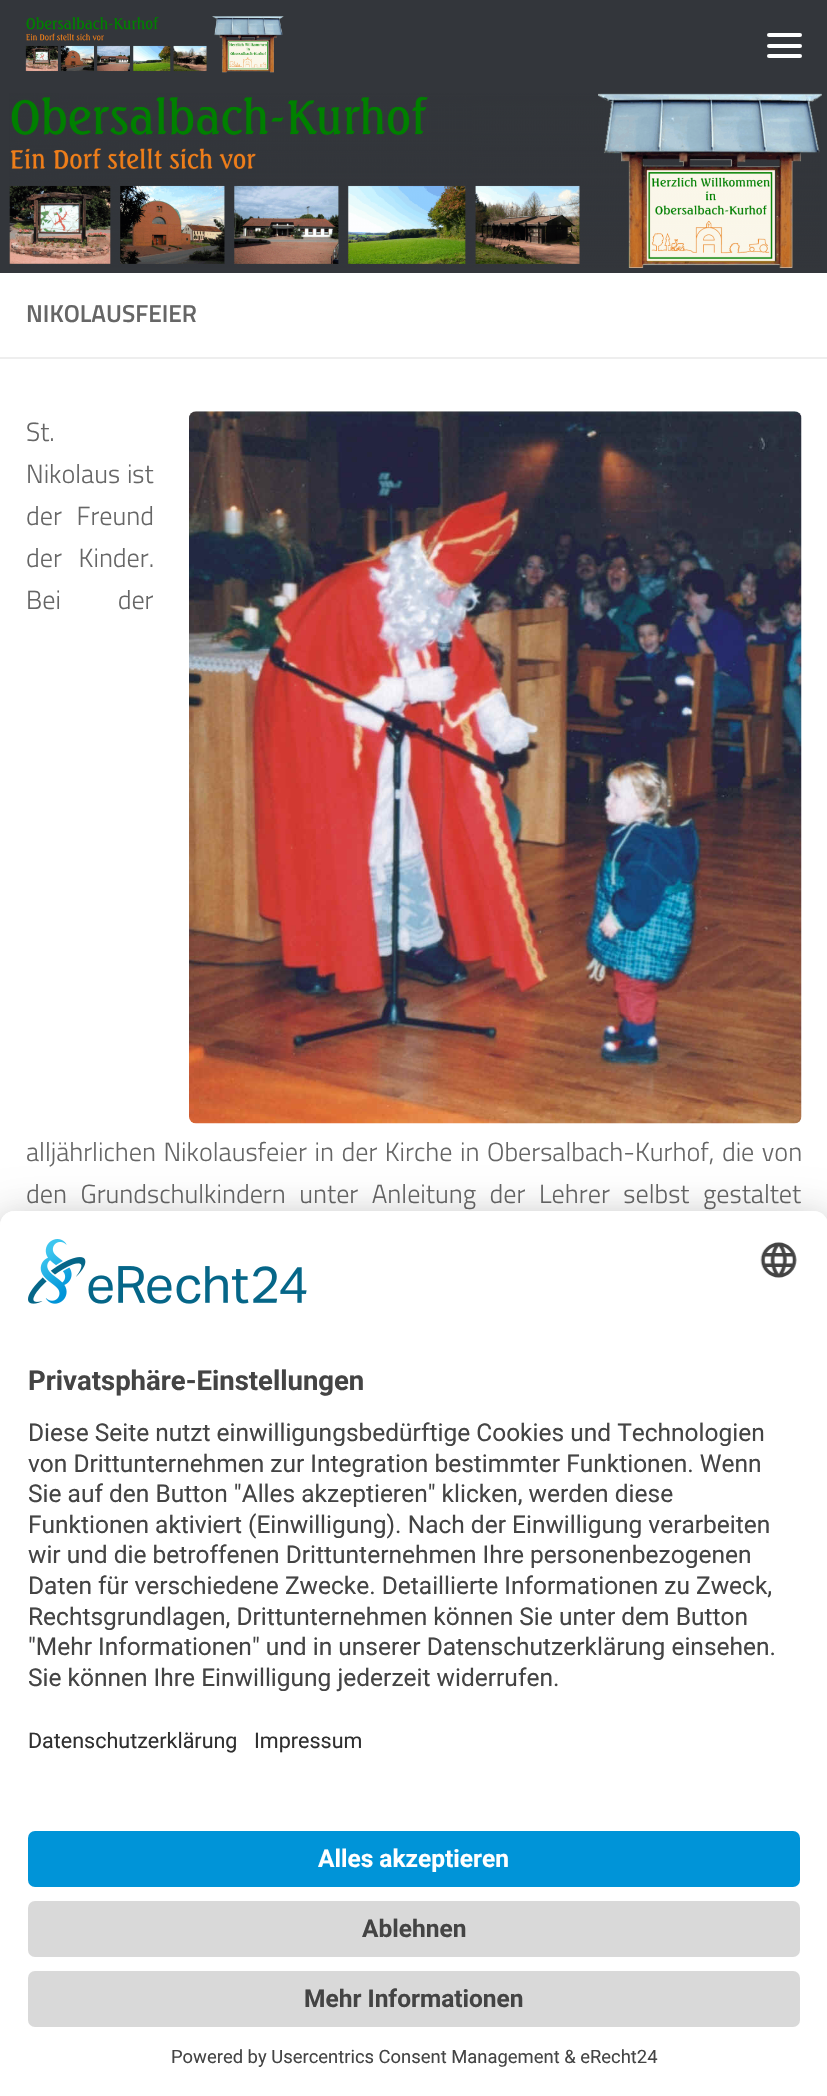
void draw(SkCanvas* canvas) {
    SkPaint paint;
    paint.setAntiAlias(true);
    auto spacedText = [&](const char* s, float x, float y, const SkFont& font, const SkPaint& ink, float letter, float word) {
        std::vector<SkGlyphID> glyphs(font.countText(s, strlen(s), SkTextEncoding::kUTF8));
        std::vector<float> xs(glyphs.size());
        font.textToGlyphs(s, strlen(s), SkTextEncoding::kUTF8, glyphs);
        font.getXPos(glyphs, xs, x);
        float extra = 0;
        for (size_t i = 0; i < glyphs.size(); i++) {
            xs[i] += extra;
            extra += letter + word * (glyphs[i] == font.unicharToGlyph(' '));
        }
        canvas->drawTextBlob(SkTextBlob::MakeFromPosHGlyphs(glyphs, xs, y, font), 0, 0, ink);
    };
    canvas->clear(0xFFFFFFFF);
    paint.setColor(0xFF33363B);
    canvas->drawRect(SkRect::MakeXYWH(0, 0, 827, 273), paint);
    canvas->drawImageRect(SkImages::DeferredFromEncodedData(SkData::MakeFromFileName("img1.png")), SkRect::MakeXYWH(25, 16, 259, 57), SkSamplingOptions());
    paint.setColor(0xFFFFFFFF);
    canvas->drawRoundRect(SkRect::MakeXYWH(767, 33, 35, 4), 2, 2, paint);
    canvas->drawRoundRect(SkRect::MakeXYWH(767, 44, 35, 4), 2, 2, paint);
    canvas->drawRoundRect(SkRect::MakeXYWH(767, 54, 35, 4), 2, 2, paint);
    canvas->drawImageRect(SkImages::DeferredFromEncodedData(SkData::MakeFromFileName("img2.png")), SkRect::MakeXYWH(9, 93, 813, 175), SkSamplingOptions());
    paint.setColor(0xFFEEEEEE);
    canvas->drawRect(SkRect::MakeXYWH(0, 357, 827, 2), paint);
    SkFont font1(fontMgr->matchFamilyStyle("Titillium", SkFontStyle(600, SkFontStyle::kNormal_Width, SkFontStyle::kUpright_Slant)), 24.5f);
    font1.setSubpixel(true);
    paint.setColor(0xFF666666);
    canvas->drawString("NIKOLAUSFEIER", 26, 322, font1, paint);
    canvas->drawImageRect(SkImages::DeferredFromEncodedData(SkData::MakeFromFileName("img3.png")), SkRect::MakeXYWH(189, 411, 613, 713), SkSamplingOptions());
    SkFont font2(fontMgr->matchFamilyStyle("Titillium", SkFontStyle(300, SkFontStyle::kNormal_Width, SkFontStyle::kUpright_Slant)), 26.25f);
    font2.setSubpixel(true);
    canvas->drawString("St.", 26, 441, font2, paint);
    spacedText("Nikolaus ist", 26, 483, font2, paint, 0, 1);
    spacedText("der Freund", 26, 525, font2, paint, 0, 9);
    spacedText("der Kinder.", 26, 567, font2, paint, 0, 11);
    spacedText("Bei der", 26, 609, font2, paint, 0, 51);
    spacedText("alljährlichen Nikolausfeier in der Kirche in Obersalbach-Kurhof, die von", 26, 1161, font2, paint, 0, 1.75f);
    spacedText("den Grundschulkindern unter Anleitung der Lehrer selbst gestaltet", 26, 1203, font2, paint, 0, 7.75f);
    paint.setColor(0x4D000000);
    paint.setMaskFilter(SkMaskFilter::MakeBlur(kNormal_SkBlurStyle, 24.5f));
    canvas->drawRoundRect(SkRect::MakeXYWH(0, 1246, 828, 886), 14, 14, paint);
    paint.setMaskFilter(nullptr);
    paint.setColor(0x38000000);
    paint.setMaskFilter(SkMaskFilter::MakeBlur(kNormal_SkBlurStyle, 23));
    canvas->drawRoundRect(SkRect::MakeXYWH(0, 1220, 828, 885), 14, 14, paint);
    paint.setMaskFilter(nullptr);
    paint.setColor(0xFFFFFFFF);
    canvas->drawPath(SkPathBuilder().moveTo(14, 1211).lineTo(814, 1211).cubicTo(821.5f, 1211, 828, 1217.5f, 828, 1225).lineTo(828, 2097).lineTo(0, 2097).lineTo(0, 1225).cubicTo(0, 1217.5f, 6.5f, 1211, 14, 1211).close().detach(), paint);
    canvas->drawPath(SkPathBuilder().moveTo(14, 1211).lineTo(814, 1211).cubicTo(821.5f, 1211, 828, 1217.5f, 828, 1225).lineTo(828, 1810).lineTo(0, 1810).lineTo(0, 1225).cubicTo(0, 1217.5f, 6.5f, 1211, 14, 1211).close().detach(), paint);
    canvas->drawImageRect(SkImages::DeferredFromEncodedData(SkData::MakeFromFileName("img4.png")), SkRect::MakeXYWH(28, 1239, 279, 65), SkSamplingOptions());
    canvas->drawImageRect(SkImages::DeferredFromEncodedData(SkData::MakeFromFileName("img5.png")), SkRect::MakeXYWH(760, 1242, 37, 36), SkSamplingOptions());
    SkFont font3(fontMgr->matchFamilyStyle("Roboto", SkFontStyle::Bold()), 27.5f);
    font3.setSubpixel(true);
    paint.setColor(0xFF444444);
    canvas->drawString("Privatsphäre-Einstellungen", 28, 1390, font3, paint);
    SkFont font4(fontMgr->matchFamilyStyle("Roboto", SkFontStyle::Normal()), 24.5f);
    font4.setSubpixel(true);
    canvas->drawString("Diese Seite nutzt einwilligungsbedürftige Cookies und Technologien", 28, 1441, font4, paint);
    canvas->drawString("von Drittunternehmen zur Integration bestimmter Funktionen. Wenn", 28, 1472, font4, paint);
    canvas->drawString("Sie auf den Button \"Alles akzeptieren\" klicken, werden diese", 28, 1502, font4, paint);
    canvas->drawString("Funktionen aktiviert (Einwilligung). Nach der Einwilligung verarbeiten", 28, 1533, font4, paint);
    canvas->drawString("wir und die betroffenen Drittunternehmen Ihre personenbezogenen", 28, 1563, font4, paint);
    canvas->drawString("Daten für verschiedene Zwecke. Detaillierte Informationen zu Zweck,", 28, 1594, font4, paint);
    canvas->drawString("Rechtsgrundlagen, Drittunternehmen können Sie unter dem Button", 28, 1625, font4, paint);
    canvas->drawString("\"Mehr Informationen\" und in unserer Datenschutzerklärung einsehen.", 28, 1655, font4, paint);
    canvas->drawString("Sie können Ihre Einwilligung jederzeit widerrufen.", 28, 1686, font4, paint);
    SkFont font5(fontMgr->matchFamilyStyle("Roboto", SkFontStyle::Normal()), 21.5f);
    font5.setSubpixel(true);
    paint.setColor(0xFF303030);
    canvas->drawString("Datenschutzerklärung", 28, 1748, font5, paint);
    canvas->drawString("Impressum", 254, 1748, font5, paint);
    paint.setColor(0xFF0094D8);
    canvas->drawRoundRect(SkRect::MakeXYWH(28, 1831, 772, 56), 7, 7, paint);
    SkFont font6(fontMgr->matchFamilyStyle("Roboto", SkFontStyle::Bold()), 24.5f);
    font6.setSubpixel(true);
    paint.setColor(0xFFFFFFFF);
    canvas->drawString("Alles akzeptieren", 318, 1867, font6, paint);
    paint.setColor(0xFFD9D9D9);
    canvas->drawRoundRect(SkRect::MakeXYWH(28, 1901, 772, 56), 7, 7, paint);
    paint.setColor(0xFF444444);
    canvas->drawString("Ablehnen", 362, 1937, font6, paint);
    paint.setColor(0xFFD9D9D9);
    canvas->drawRoundRect(SkRect::MakeXYWH(28, 1971, 772, 56), 7, 7, paint);
    paint.setColor(0xFF444444);
    canvas->drawString("Mehr Informationen", 304, 2007, font6, paint);
    SkFont font7(fontMgr->matchFamilyStyle("Roboto", SkFontStyle::Normal()), 18.4f);
    font7.setSubpixel(true);
    canvas->drawString("Powered by Usercentrics Consent Management & eRecht24", 171, 2063, font7, paint);
}
